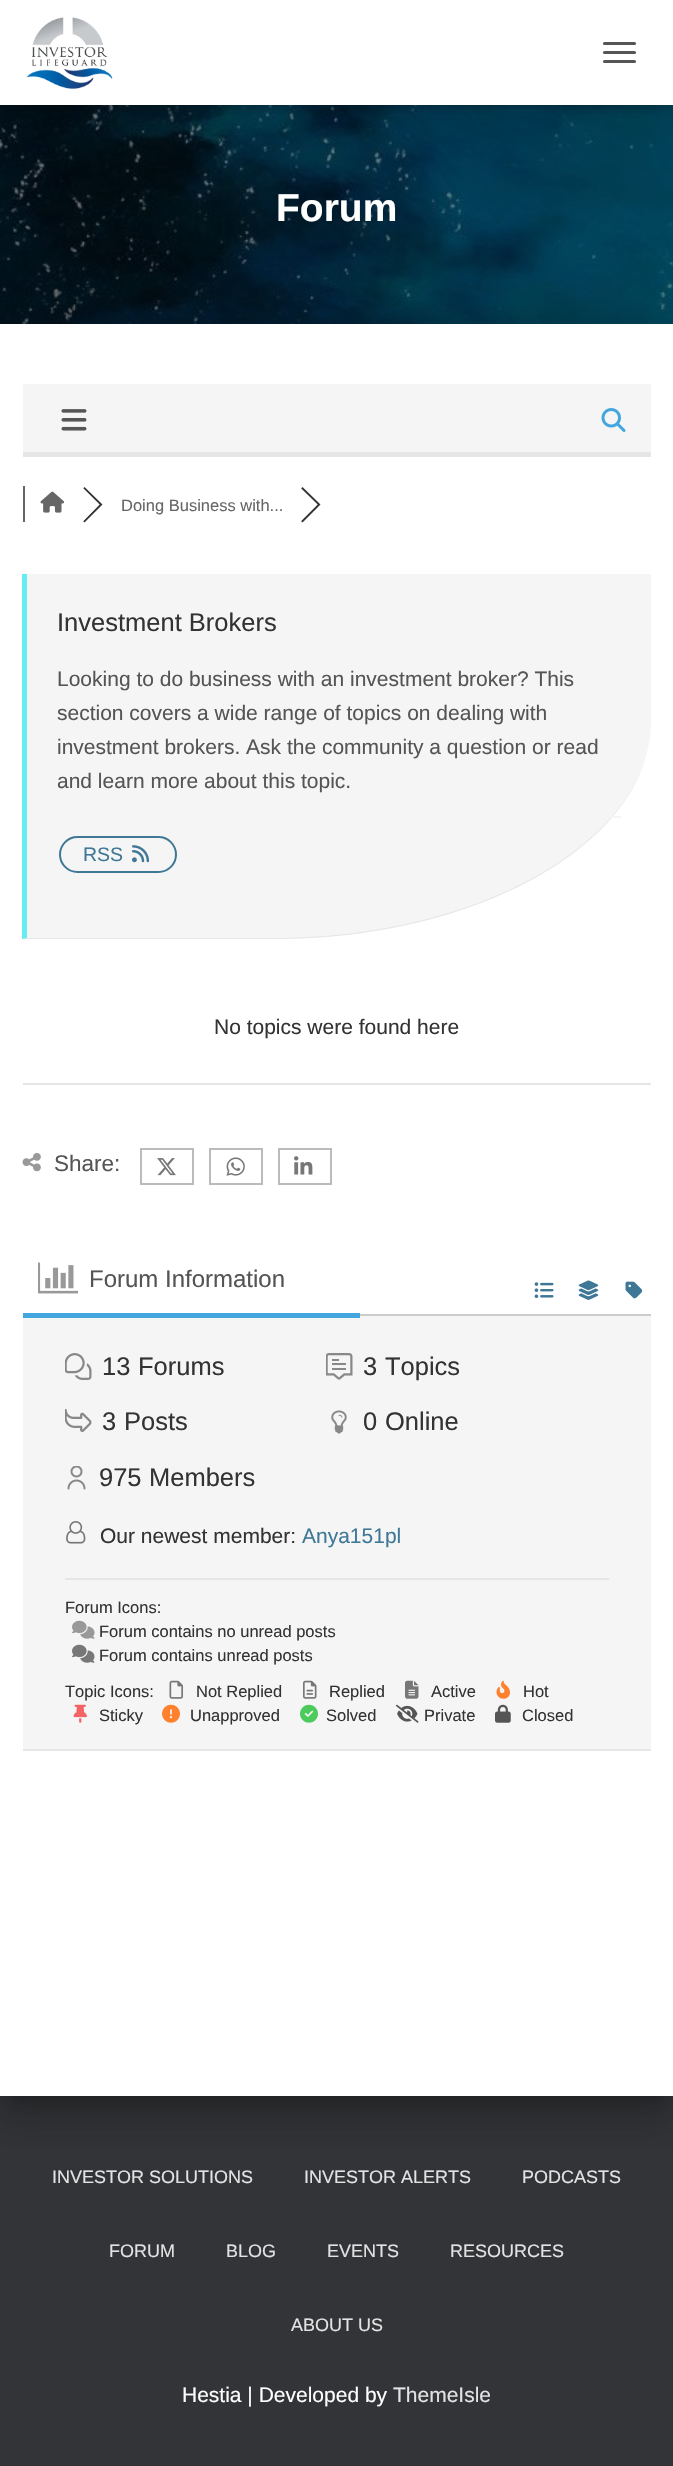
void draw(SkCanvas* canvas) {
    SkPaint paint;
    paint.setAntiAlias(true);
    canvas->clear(0xFFFFFFFF);
    canvas->drawImageRect(SkImages::DeferredFromEncodedData(SkData::MakeFromFileName("img1.png")), SkRect::MakeXYWH(0, 105, 673, 219), SkSamplingOptions());
    paint.setColor(0x80000000);
    canvas->drawRect(SkRect::MakeXYWH(0, 105, 673, 219), paint);
    paint.setColor(0x1A000000);
    paint.setMaskFilter(SkMaskFilter::MakeBlur(kNormal_SkBlurStyle, 4));
    canvas->drawRect(SkRect::MakeXYWH(3, 9, 668, 99), paint);
    paint.setMaskFilter(nullptr);
    paint.setColor(0x1F000000);
    paint.setMaskFilter(SkMaskFilter::MakeBlur(kNormal_SkBlurStyle, 7.5f));
    canvas->drawRect(SkRect::MakeXYWH(0, 2, 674, 105), paint);
    paint.setMaskFilter(nullptr);
    paint.setColor(0x6B000000);
    paint.setMaskFilter(SkMaskFilter::MakeBlur(kNormal_SkBlurStyle, 7.5f));
    canvas->drawRect(SkRect::MakeXYWH(9, 11, 656, 87), paint);
    paint.setMaskFilter(nullptr);
    paint.setColor(0xFFFFFFFF);
    canvas->drawRect(SkRect::MakeXYWH(0, 0, 673, 105), paint);
    canvas->drawImageRect(SkImages::DeferredFromEncodedData(SkData::MakeFromFileName("img2.png")), SkRect::MakeXYWH(26, 17, 87, 73), SkSamplingOptions());
    paint.setColor(0xFF555555);
    canvas->drawRoundRect(SkRect::MakeXYWH(603, 42, 33, 3), 1.5f, 1.5f, paint);
    canvas->drawRoundRect(SkRect::MakeXYWH(603, 51, 33, 3), 1.5f, 1.5f, paint);
    canvas->drawRoundRect(SkRect::MakeXYWH(603, 60, 33, 3), 1.5f, 1.5f, paint);
    SkFont font1(fontMgr->matchFamilyStyle("Liberation Sans", SkFontStyle::Bold()), 39);
    font1.setSubpixel(true);
    paint.setColor(0xFFFFFFFF);
    canvas->drawString("Forum", 276, 221, font1, paint);
    paint.setColor(0xFF323437);
    canvas->drawRect(SkRect::MakeXYWH(0, 2096, 673, 370), paint);
    paint.setColor(0x33000000);
    paint.setMaskFilter(SkMaskFilter::MakeBlur(kNormal_SkBlurStyle, 7.5f));
    canvas->drawRect(SkRect::MakeXYWH(8, 344, 658, 1756), paint);
    paint.setMaskFilter(nullptr);
    paint.setColor(0x1F000000);
    paint.setMaskFilter(SkMaskFilter::MakeBlur(kNormal_SkBlurStyle, 22.5f));
    canvas->drawRect(SkRect::MakeXYWH(-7, 326, 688, 1786), paint);
    paint.setMaskFilter(nullptr);
    paint.setColor(0x24000000);
    paint.setMaskFilter(SkMaskFilter::MakeBlur(kNormal_SkBlurStyle, 18));
    canvas->drawRect(SkRect::MakeXYWH(-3, 345, 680, 1778), paint);
    paint.setMaskFilter(nullptr);
    paint.setColor(0xFFFFFFFF);
    canvas->drawRect(SkRect::MakeXYWH(0, 324, 673, 1772), paint);
    paint.setColor(0xFFF5F5F5);
    canvas->drawRect(SkRect::MakeXYWH(23, 384, 628, 68), paint);
    paint.setColor(0xFFE6E6E6);
    canvas->drawRect(SkRect::MakeXYWH(23, 452, 628, 5), paint);
    canvas->drawImageRect(SkImages::DeferredFromEncodedData(SkData::MakeFromFileName("img3.png")), SkRect::MakeXYWH(61, 409, 26, 22), SkSamplingOptions());
    canvas->drawImageRect(SkImages::DeferredFromEncodedData(SkData::MakeFromFileName("img4.png")), SkRect::MakeXYWH(601, 408, 25, 24), SkSamplingOptions());
    paint.setColor(0xFF666666);
    canvas->drawRect(SkRect::MakeXYWH(23, 486, 2, 36), paint);
    canvas->drawImageRect(SkImages::DeferredFromEncodedData(SkData::MakeFromFileName("img5.png")), SkRect::MakeXYWH(40, 491, 25, 22), SkSamplingOptions());
    paint.setColor(0xFF333333);
    canvas->drawPath(SkPathBuilder().moveTo(84.5f, 487).lineTo(83, 488.5f).lineTo(99.5f, 504.5f).lineTo(83, 521).lineTo(84.5f, 522.5f).lineTo(102.5f, 504.5f).close().detach(), paint);
    paint.setColor(0xFFFFFFFF);
    canvas->drawPath(SkPathBuilder().moveTo(82, 487).lineTo(99.5f, 504.5f).lineTo(82, 522.5f).lineTo(64, 504.5f).close().detach(), paint);
    SkFont font2(fontMgr->matchFamilyStyle("Liberation Sans", SkFontStyle::Normal()), 16.5f);
    font2.setSubpixel(true);
    paint.setColor(0xFF666666);
    canvas->drawString("Doing Business with...", 121, 511, font2, paint);
    paint.setColor(0xFF333333);
    canvas->drawPath(SkPathBuilder().moveTo(302.5f, 487).lineTo(301, 488.5f).lineTo(317.5f, 504.5f).lineTo(301, 521).lineTo(302.5f, 522.5f).lineTo(320.5f, 504.5f).close().detach(), paint);
    paint.setColor(0xFFFFFFFF);
    canvas->drawPath(SkPathBuilder().moveTo(299.5f, 487).lineTo(317.5f, 504.5f).lineTo(299.5f, 522.5f).lineTo(282, 504.5f).close().detach(), paint);
    paint.setColor(0xFFF5F5F5);
    canvas->drawPath(SkPathBuilder().moveTo(22, 574).lineTo(651, 574).lineTo(651, 720).cubicTo(651, 841, 482, 939, 274, 939).lineTo(22, 939).close().detach(), paint);
    paint.setColor(0xFFE6E6E6);
    canvas->drawPath(SkPathBuilder().moveTo(22, 939).lineTo(274, 939).cubicTo(460, 939, 616, 860, 646, 757).cubicTo(615, 859, 460, 938, 274, 938).lineTo(27, 938).close().detach(), paint);
    paint.setColor(0xFF67EDF1);
    canvas->drawPath(SkPathBuilder().moveTo(22, 939).lineTo(22, 574).lineTo(27, 574).lineTo(27, 938).close().detach(), paint);
    SkFont font3(fontMgr->matchFamilyStyle("Liberation Sans", SkFontStyle::Normal()), 25.5f);
    font3.setSubpixel(true);
    paint.setColor(0xFF333333);
    canvas->drawString("Investment Brokers", 57, 631, font3, paint);
    SkFont font4(fontMgr->matchFamilyStyle("Liberation Sans", SkFontStyle::Normal()), 21);
    font4.setSubpixel(true);
    paint.setColor(0xFF555555);
    canvas->drawString("Looking to do business with an investment broker? This", 57, 686, font4, paint);
    canvas->drawString("section covers a wide range of topics on dealing with", 57, 720, font4, paint);
    canvas->drawString("investment brokers. Ask the community a question or read", 57, 754, font4, paint);
    canvas->drawString("and learn more about this topic.", 57, 788, font4, paint);
    paint.setColor(0xFFF5F5F5);
    canvas->drawRect(SkRect::MakeXYWH(611, 816, 10, 2), paint);
    paint.setStyle(SkPaint::kStroke_Style);
    paint.setStrokeWidth(2);
    paint.setColor(0xFF3F7796);
    canvas->drawRoundRect(SkRect::MakeXYWH(60, 837, 116, 35), 17.5f, 17.5f, paint);
    SkFont font5(fontMgr->matchFamilyStyle("Liberation Sans", SkFontStyle::Normal()), 19.5f);
    font5.setSubpixel(true);
    paint.setStyle(SkPaint::kFill_Style);
    canvas->drawString("RSS", 83, 861, font5, paint);
    canvas->drawImageRect(SkImages::DeferredFromEncodedData(SkData::MakeFromFileName("img6.png")), SkRect::MakeXYWH(132, 845, 18, 18), SkSamplingOptions());
    paint.setColor(0xFFE6E6E6);
    canvas->drawRect(SkRect::MakeXYWH(23, 1083, 628, 2), paint);
    paint.setColor(0xFF333333);
    canvas->drawString("No topics were found here", 214, 1034, font4, paint);
    canvas->drawImageRect(SkImages::DeferredFromEncodedData(SkData::MakeFromFileName("img7.png")), SkRect::MakeXYWH(22, 1153, 19, 19), SkSamplingOptions());
    SkFont font6(fontMgr->matchFamilyStyle("Liberation Sans", SkFontStyle::Normal()), 22.5f);
    font6.setSubpixel(true);
    paint.setColor(0xFF555555);
    canvas->drawString("Share:", 54, 1171, font6, paint);
    paint.setStyle(SkPaint::kStroke_Style);
    paint.setColor(0xFFBBBBBB);
    canvas->drawRect(SkRect::MakeXYWH(141, 1149, 52, 35), paint);
    canvas->drawImageRect(SkImages::DeferredFromEncodedData(SkData::MakeFromFileName("img8.png")), SkRect::MakeXYWH(157, 1158, 19, 18), SkSamplingOptions());
    canvas->drawRect(SkRect::MakeXYWH(210, 1149, 52, 35), paint);
    canvas->drawImageRect(SkImages::DeferredFromEncodedData(SkData::MakeFromFileName("img9.png")), SkRect::MakeXYWH(226, 1157, 19, 19), SkSamplingOptions());
    canvas->drawRect(SkRect::MakeXYWH(279, 1149, 52, 35), paint);
    canvas->drawImageRect(SkImages::DeferredFromEncodedData(SkData::MakeFromFileName("img10.png")), SkRect::MakeXYWH(294, 1156, 19, 19), SkSamplingOptions());
    paint.setStyle(SkPaint::kFill_Style);
    paint.setColor(0xFFCCCCCC);
    canvas->drawRect(SkRect::MakeXYWH(360, 1314, 291, 2), paint);
    paint.setColor(0xFFF5F5F5);
    canvas->drawRect(SkRect::MakeXYWH(23, 1316, 628, 433), paint);
    paint.setColor(0xFF43A6DF);
    canvas->drawRect(SkRect::MakeXYWH(23, 1313, 337, 5), paint);
    canvas->drawImageRect(SkImages::DeferredFromEncodedData(SkData::MakeFromFileName("img11.png")), SkRect::MakeXYWH(38, 1262, 40, 32), SkSamplingOptions());
    SkFont font7(fontMgr->matchFamilyStyle("Liberation Sans", SkFontStyle::Normal()), 24);
    font7.setSubpixel(true);
    paint.setColor(0xFF555555);
    canvas->drawString("Forum Information", 89, 1287, font7, paint);
    canvas->drawImageRect(SkImages::DeferredFromEncodedData(SkData::MakeFromFileName("img12.png")), SkRect::MakeXYWH(534, 1282, 20, 17), SkSamplingOptions());
    canvas->drawImageRect(SkImages::DeferredFromEncodedData(SkData::MakeFromFileName("img13.png")), SkRect::MakeXYWH(578, 1280, 21, 20), SkSamplingOptions());
    canvas->drawImageRect(SkImages::DeferredFromEncodedData(SkData::MakeFromFileName("img14.png")), SkRect::MakeXYWH(625, 1281, 18, 18), SkSamplingOptions());
    canvas->drawImageRect(SkImages::DeferredFromEncodedData(SkData::MakeFromFileName("img15.png")), SkRect::MakeXYWH(65, 1353, 27, 27), SkSamplingOptions());
    paint.setColor(0xFF333333);
    canvas->drawString("13", 102, 1375, font3, paint);
    canvas->drawString("Forums", 138, 1375, font3, paint);
    canvas->drawImageRect(SkImages::DeferredFromEncodedData(SkData::MakeFromFileName("img16.png")), SkRect::MakeXYWH(326, 1353, 27, 27), SkSamplingOptions());
    canvas->drawString("3", 363, 1375, font3, paint);
    canvas->drawString("Topics", 385, 1375, font3, paint);
    canvas->drawImageRect(SkImages::DeferredFromEncodedData(SkData::MakeFromFileName("img17.png")), SkRect::MakeXYWH(65, 1409, 27, 23), SkSamplingOptions());
    canvas->drawString("3", 102, 1430, font3, paint);
    canvas->drawString("Posts", 124, 1430, font3, paint);
    canvas->drawImageRect(SkImages::DeferredFromEncodedData(SkData::MakeFromFileName("img18.png")), SkRect::MakeXYWH(331, 1410, 16, 24), SkSamplingOptions());
    canvas->drawString("0", 363, 1430, font3, paint);
    canvas->drawString("Online", 385, 1430, font3, paint);
    canvas->drawImageRect(SkImages::DeferredFromEncodedData(SkData::MakeFromFileName("img19.png")), SkRect::MakeXYWH(67, 1466, 19, 24), SkSamplingOptions());
    canvas->drawString("975", 99, 1486, font3, paint);
    canvas->drawString("Members", 149, 1486, font3, paint);
    canvas->drawImageRect(SkImages::DeferredFromEncodedData(SkData::MakeFromFileName("img20.png")), SkRect::MakeXYWH(66, 1521, 20, 23), SkSamplingOptions());
    canvas->drawString("Our newest member:", 100, 1543, font4, paint);
    paint.setColor(0xFF3F7796);
    canvas->drawString("Anya151pl", 302, 1543, font4, paint);
    paint.setColor(0xFFE6E6E6);
    canvas->drawRect(SkRect::MakeXYWH(65, 1578, 544, 2), paint);
    paint.setColor(0xFF333333);
    canvas->drawString("Forum Icons:", 65, 1613, font2, paint);
    canvas->drawImageRect(SkImages::DeferredFromEncodedData(SkData::MakeFromFileName("img21.png")), SkRect::MakeXYWH(72, 1620, 23, 19), SkSamplingOptions());
    canvas->drawString("Forum contains no unread posts", 99, 1637, font2, paint);
    canvas->drawImageRect(SkImages::DeferredFromEncodedData(SkData::MakeFromFileName("img22.png")), SkRect::MakeXYWH(72, 1644, 23, 19), SkSamplingOptions());
    canvas->drawString("Forum contains unread posts", 99, 1661, font2, paint);
    canvas->drawString("Topic Icons:", 65, 1697, font2, paint);
    canvas->drawImageRect(SkImages::DeferredFromEncodedData(SkData::MakeFromFileName("img23.png")), SkRect::MakeXYWH(169, 1680, 14, 19), SkSamplingOptions());
    canvas->drawString("Not Replied", 196, 1697, font2, paint);
    canvas->drawImageRect(SkImages::DeferredFromEncodedData(SkData::MakeFromFileName("img24.png")), SkRect::MakeXYWH(303, 1680, 14, 19), SkSamplingOptions());
    canvas->drawString("Replied", 329, 1697, font2, paint);
    canvas->drawImageRect(SkImages::DeferredFromEncodedData(SkData::MakeFromFileName("img25.png")), SkRect::MakeXYWH(405, 1680, 14, 19), SkSamplingOptions());
    canvas->drawString("Active", 431, 1697, font2, paint);
    canvas->drawImageRect(SkImages::DeferredFromEncodedData(SkData::MakeFromFileName("img26.png")), SkRect::MakeXYWH(496, 1680, 14, 19), SkSamplingOptions());
    canvas->drawString("Hot", 523, 1697, font2, paint);
    canvas->drawImageRect(SkImages::DeferredFromEncodedData(SkData::MakeFromFileName("img27.png")), SkRect::MakeXYWH(73, 1704, 14, 19), SkSamplingOptions());
    canvas->drawString("Sticky", 99, 1721, font2, paint);
    canvas->drawImageRect(SkImages::DeferredFromEncodedData(SkData::MakeFromFileName("img28.png")), SkRect::MakeXYWH(162, 1704, 18, 19), SkSamplingOptions());
    canvas->drawString("Unapproved", 190, 1721, font2, paint);
    canvas->drawImageRect(SkImages::DeferredFromEncodedData(SkData::MakeFromFileName("img29.png")), SkRect::MakeXYWH(300, 1704, 18, 19), SkSamplingOptions());
    canvas->drawString("Solved", 326, 1721, font2, paint);
    canvas->drawImageRect(SkImages::DeferredFromEncodedData(SkData::MakeFromFileName("img30.png")), SkRect::MakeXYWH(396, 1704, 23, 19), SkSamplingOptions());
    canvas->drawString("Private", 424, 1721, font2, paint);
    canvas->drawImageRect(SkImages::DeferredFromEncodedData(SkData::MakeFromFileName("img31.png")), SkRect::MakeXYWH(495, 1704, 16, 19), SkSamplingOptions());
    canvas->drawString("Closed", 522, 1721, font2, paint);
    paint.setColor(0xFFE6E6E6);
    canvas->drawRect(SkRect::MakeXYWH(23, 1749, 628, 2), paint);
    SkFont font8(fontMgr->matchFamilyStyle("Liberation Sans", SkFontStyle::Normal()), 18);
    font8.setSubpixel(true);
    paint.setColor(0xFFE2E3E3);
    canvas->drawString("INVESTOR SOLUTIONS", 52, 2183, font8, paint);
    canvas->drawString("INVESTOR ALERTS", 304, 2183, font8, paint);
    canvas->drawString("PODCASTS", 522, 2183, font8, paint);
    canvas->drawString("FORUM", 109, 2257, font8, paint);
    canvas->drawString("BLOG", 226, 2257, font8, paint);
    canvas->drawString("EVENTS", 327, 2257, font8, paint);
    canvas->drawString("RESOURCES", 450, 2257, font8, paint);
    canvas->drawString("ABOUT US", 291, 2331, font8, paint);
    paint.setColor(0xFFFFFFFF);
    canvas->drawString("Hestia | Developed by", 182, 2402, font4, paint);
    paint.setColor(0xFFE2E3E3);
    canvas->drawString("ThemeIsle", 393, 2402, font4, paint);
}
